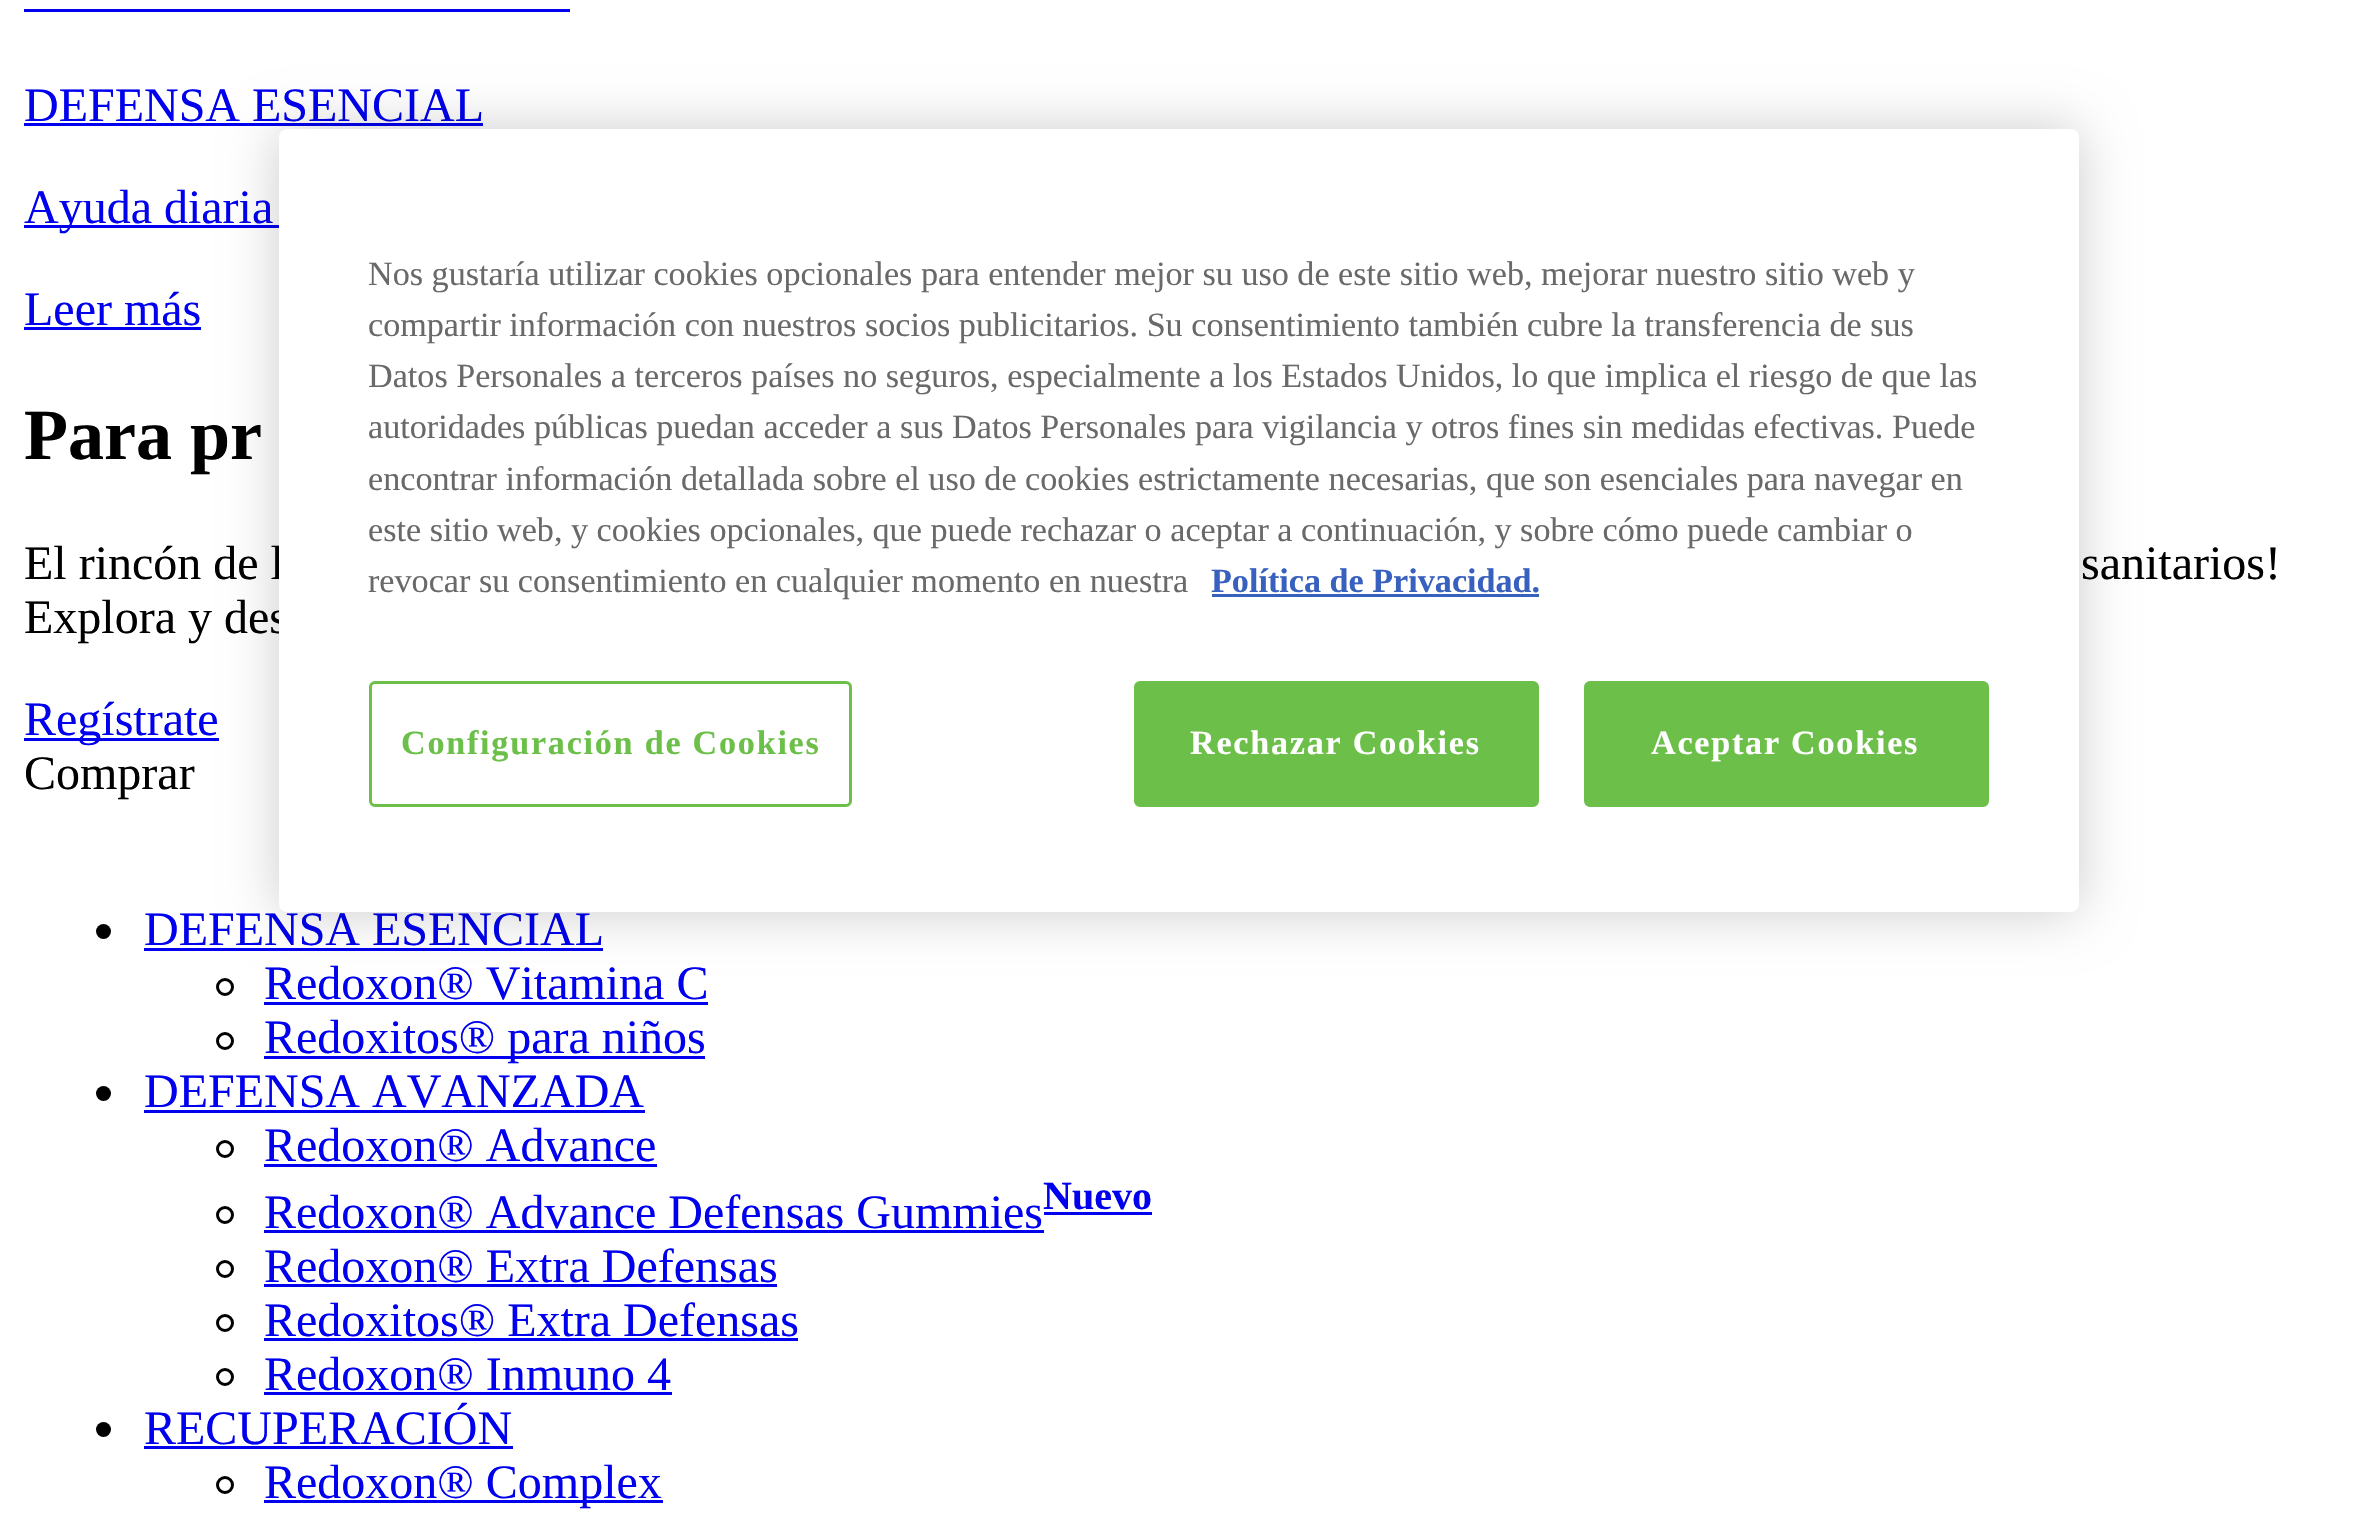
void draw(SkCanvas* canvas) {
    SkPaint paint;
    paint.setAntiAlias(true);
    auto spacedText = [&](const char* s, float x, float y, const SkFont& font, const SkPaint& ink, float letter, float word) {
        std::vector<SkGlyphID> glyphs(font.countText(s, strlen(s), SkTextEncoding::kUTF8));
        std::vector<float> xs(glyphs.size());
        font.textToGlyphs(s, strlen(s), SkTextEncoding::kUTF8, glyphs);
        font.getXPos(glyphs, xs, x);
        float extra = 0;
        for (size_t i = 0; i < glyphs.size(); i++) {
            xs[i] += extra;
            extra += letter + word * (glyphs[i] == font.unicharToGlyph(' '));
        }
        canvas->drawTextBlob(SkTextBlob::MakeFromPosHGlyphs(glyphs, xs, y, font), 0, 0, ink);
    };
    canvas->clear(0xFFFFFFFF);
    paint.setColor(0xFF0000EE);
    canvas->drawRect(SkRect::MakeXYWH(24, 9, 546, 3), paint);
    SkFont font1(fontMgr->matchFamilyStyle("Liberation Serif", SkFontStyle::Normal()), 48);
    font1.setSubpixel(true);
    canvas->drawString("DEFENSA ESENCIAL", 24, 121, font1, paint);
    canvas->drawRect(SkRect::MakeXYWH(24, 123, 459, 3), paint);
    canvas->drawRect(SkRect::MakeXYWH(24, 225, 255, 3), paint);
    canvas->drawString("Ayuda diaria", 24, 223, font1, paint);
    canvas->drawString("Leer más", 24, 325, font1, paint);
    canvas->drawRect(SkRect::MakeXYWH(24, 327, 177, 3), paint);
    SkFont font2(fontMgr->matchFamilyStyle("Liberation Serif", SkFontStyle::Bold()), 72);
    font2.setSubpixel(true);
    paint.setColor(0xFF000000);
    canvas->drawString("Para pr", 24, 459, font2, paint);
    canvas->drawString("El rincón de l", 24, 579, font1, paint);
    canvas->drawString("sanitarios!", 2081, 579, font1, paint);
    canvas->drawString("Explora y des", 24, 633, font1, paint);
    paint.setColor(0xFF0000EE);
    canvas->drawRect(SkRect::MakeXYWH(24, 738, 195, 3), paint);
    canvas->drawString("Regístrate", 24, 735, font1, paint);
    paint.setColor(0xFF000000);
    canvas->drawString("Comprar", 24, 789, font1, paint);
    canvas->drawCircle(103.5f, 931.5f, 7.5f, paint);
    paint.setColor(0xFF0000EE);
    canvas->drawString("DEFENSA ESENCIAL", 144, 945, font1, paint);
    canvas->drawRect(SkRect::MakeXYWH(144, 948, 459, 3), paint);
    paint.setStyle(SkPaint::kStroke_Style);
    paint.setStrokeWidth(3);
    paint.setColor(0xFF000000);
    canvas->drawCircle(225, 987, 7.5f, paint);
    paint.setStyle(SkPaint::kFill_Style);
    paint.setColor(0xFF0000EE);
    canvas->drawString("Redoxon® Vitamina C", 264, 999, font1, paint);
    canvas->drawRect(SkRect::MakeXYWH(264, 1002, 444, 3), paint);
    paint.setStyle(SkPaint::kStroke_Style);
    paint.setColor(0xFF000000);
    canvas->drawCircle(225, 1041, 7.5f, paint);
    paint.setStyle(SkPaint::kFill_Style);
    paint.setColor(0xFF0000EE);
    canvas->drawRect(SkRect::MakeXYWH(264, 1056, 441, 3), paint);
    canvas->drawString("Redoxitos® para niños", 264, 1053, font1, paint);
    paint.setColor(0xFF000000);
    canvas->drawCircle(103.5f, 1093.5f, 7.5f, paint);
    paint.setColor(0xFF0000EE);
    canvas->drawString("DEFENSA AVANZADA", 144, 1107, font1, paint);
    canvas->drawRect(SkRect::MakeXYWH(144, 1110, 501, 3), paint);
    paint.setStyle(SkPaint::kStroke_Style);
    paint.setColor(0xFF000000);
    canvas->drawCircle(225, 1149, 7.5f, paint);
    paint.setStyle(SkPaint::kFill_Style);
    paint.setColor(0xFF0000EE);
    canvas->drawString("Redoxon® Advance", 264, 1161, font1, paint);
    canvas->drawRect(SkRect::MakeXYWH(264, 1164, 393, 3), paint);
    paint.setStyle(SkPaint::kStroke_Style);
    paint.setColor(0xFF000000);
    canvas->drawCircle(225, 1215, 7.5f, paint);
    paint.setStyle(SkPaint::kFill_Style);
    paint.setColor(0xFF0000EE);
    canvas->drawString("Redoxon® Advance Defensas Gummies", 264, 1228, font1, paint);
    canvas->drawRect(SkRect::MakeXYWH(264, 1230, 780, 3), paint);
    canvas->drawRect(SkRect::MakeXYWH(1044, 1212, 108, 3), paint);
    SkFont font3(fontMgr->matchFamilyStyle("Liberation Serif", SkFontStyle::Bold()), 40);
    font3.setSubpixel(true);
    canvas->drawString("Nuevo", 1043, 1209, font3, paint);
    paint.setStyle(SkPaint::kStroke_Style);
    paint.setColor(0xFF000000);
    canvas->drawCircle(225, 1269, 7.5f, paint);
    paint.setStyle(SkPaint::kFill_Style);
    paint.setColor(0xFF0000EE);
    canvas->drawString("Redoxon® Extra Defensas", 264, 1282, font1, paint);
    canvas->drawRect(SkRect::MakeXYWH(264, 1284, 513, 3), paint);
    paint.setStyle(SkPaint::kStroke_Style);
    paint.setColor(0xFF000000);
    canvas->drawCircle(225, 1323, 7.5f, paint);
    paint.setStyle(SkPaint::kFill_Style);
    paint.setColor(0xFF0000EE);
    canvas->drawString("Redoxitos® Extra Defensas", 264, 1336, font1, paint);
    canvas->drawRect(SkRect::MakeXYWH(264, 1338, 534, 3), paint);
    paint.setStyle(SkPaint::kStroke_Style);
    paint.setColor(0xFF000000);
    canvas->drawCircle(225, 1377, 7.5f, paint);
    paint.setStyle(SkPaint::kFill_Style);
    paint.setColor(0xFF0000EE);
    canvas->drawString("Redoxon® Inmuno 4", 264, 1390, font1, paint);
    canvas->drawRect(SkRect::MakeXYWH(264, 1392, 408, 3), paint);
    paint.setColor(0xFF000000);
    canvas->drawCircle(103.5f, 1429.5f, 7.5f, paint);
    paint.setColor(0xFF0000EE);
    canvas->drawString("RECUPERACIÓN", 144, 1444, font1, paint);
    canvas->drawRect(SkRect::MakeXYWH(144, 1446, 369, 3), paint);
    paint.setStyle(SkPaint::kStroke_Style);
    paint.setColor(0xFF000000);
    canvas->drawCircle(225, 1485, 7.5f, paint);
    paint.setStyle(SkPaint::kFill_Style);
    paint.setColor(0xFF0000EE);
    canvas->drawRect(SkRect::MakeXYWH(264, 1500, 399, 3), paint);
    canvas->drawString("Redoxon® Complex", 264, 1498, font1, paint);
    paint.setColor(0x33000000);
    paint.setMaskFilter(SkMaskFilter::MakeBlur(kNormal_SkBlurStyle, 27));
    canvas->drawRoundRect(SkRect::MakeXYWH(279, 129, 1800, 783), 8, 8, paint);
    paint.setMaskFilter(nullptr);
    paint.setColor(0xFFFFFFFF);
    canvas->drawRoundRect(SkRect::MakeXYWH(279, 129, 1800, 783), 8, 8, paint);
    SkFont font4(fontMgr->matchFamilyStyle("Liberation Serif", SkFontStyle::Normal()), 34.15f);
    font4.setSubpixel(true);
    paint.setColor(0xFF696969);
    canvas->drawString("Nos gustaría utilizar cookies opcionales para entender mejor su uso de este sitio web, mejorar nuestro sitio web y", 368, 285, font4, paint);
    canvas->drawString("compartir información con nuestros socios publicitarios. Su consentimiento también cubre la transferencia de sus", 368, 336, font4, paint);
    canvas->drawString("Datos Personales a terceros países no seguros, especialmente a los Estados Unidos, lo que implica el riesgo de que las", 368, 387, font4, paint);
    canvas->drawString("autoridades públicas puedan acceder a sus Datos Personales para vigilancia y otros fines sin medidas efectivas. Puede", 368, 438, font4, paint);
    canvas->drawString("encontrar información detallada sobre el uso de cookies estrictamente necesarias, que son esenciales para navegar en", 368, 490, font4, paint);
    canvas->drawString("este sitio web, y cookies opcionales, que puede rechazar o aceptar a continuación, y sobre cómo puede cambiar o", 368, 541, font4, paint);
    canvas->drawString("revocar su consentimiento en cualquier momento en nuestra", 368, 592, font4, paint);
    SkFont font5(fontMgr->matchFamilyStyle("Liberation Serif", SkFontStyle::Bold()), 34.15f);
    font5.setSubpixel(true);
    paint.setColor(0xFF3860BE);
    canvas->drawString("Política de Privacidad.", 1211, 592, font5, paint);
    canvas->drawRect(SkRect::MakeXYWH(1212, 594, 327, 3), paint);
    paint.setStyle(SkPaint::kStroke_Style);
    paint.setColor(0xFF6CC04A);
    canvas->drawRoundRect(SkRect::MakeXYWH(370.5f, 682.5f, 480, 123), 4.5f, 4.5f, paint);
    paint.setStyle(SkPaint::kFill_Style);
    spacedText("Configuración de Cookies", 401, 754, font5, paint, 1.75f, 0);
    canvas->drawRoundRect(SkRect::MakeXYWH(1135.5f, 682.5f, 402, 123), 4.5f, 4.5f, paint);
    paint.setStyle(SkPaint::kStroke_Style);
    canvas->drawRoundRect(SkRect::MakeXYWH(1135.5f, 682.5f, 402, 123), 4.5f, 4.5f, paint);
    paint.setStyle(SkPaint::kFill_Style);
    paint.setColor(0xFFFFFFFF);
    spacedText("Rechazar Cookies", 1190, 754, font5, paint, 1.75f, 0);
    paint.setColor(0xFF6CC04A);
    canvas->drawRoundRect(SkRect::MakeXYWH(1585.5f, 682.5f, 402, 123), 4.5f, 4.5f, paint);
    paint.setStyle(SkPaint::kStroke_Style);
    canvas->drawRoundRect(SkRect::MakeXYWH(1585.5f, 682.5f, 402, 123), 4.5f, 4.5f, paint);
    paint.setStyle(SkPaint::kFill_Style);
    paint.setColor(0xFFFFFFFF);
    spacedText("Aceptar Cookies", 1651, 754, font5, paint, 1.75f, 0);
}
